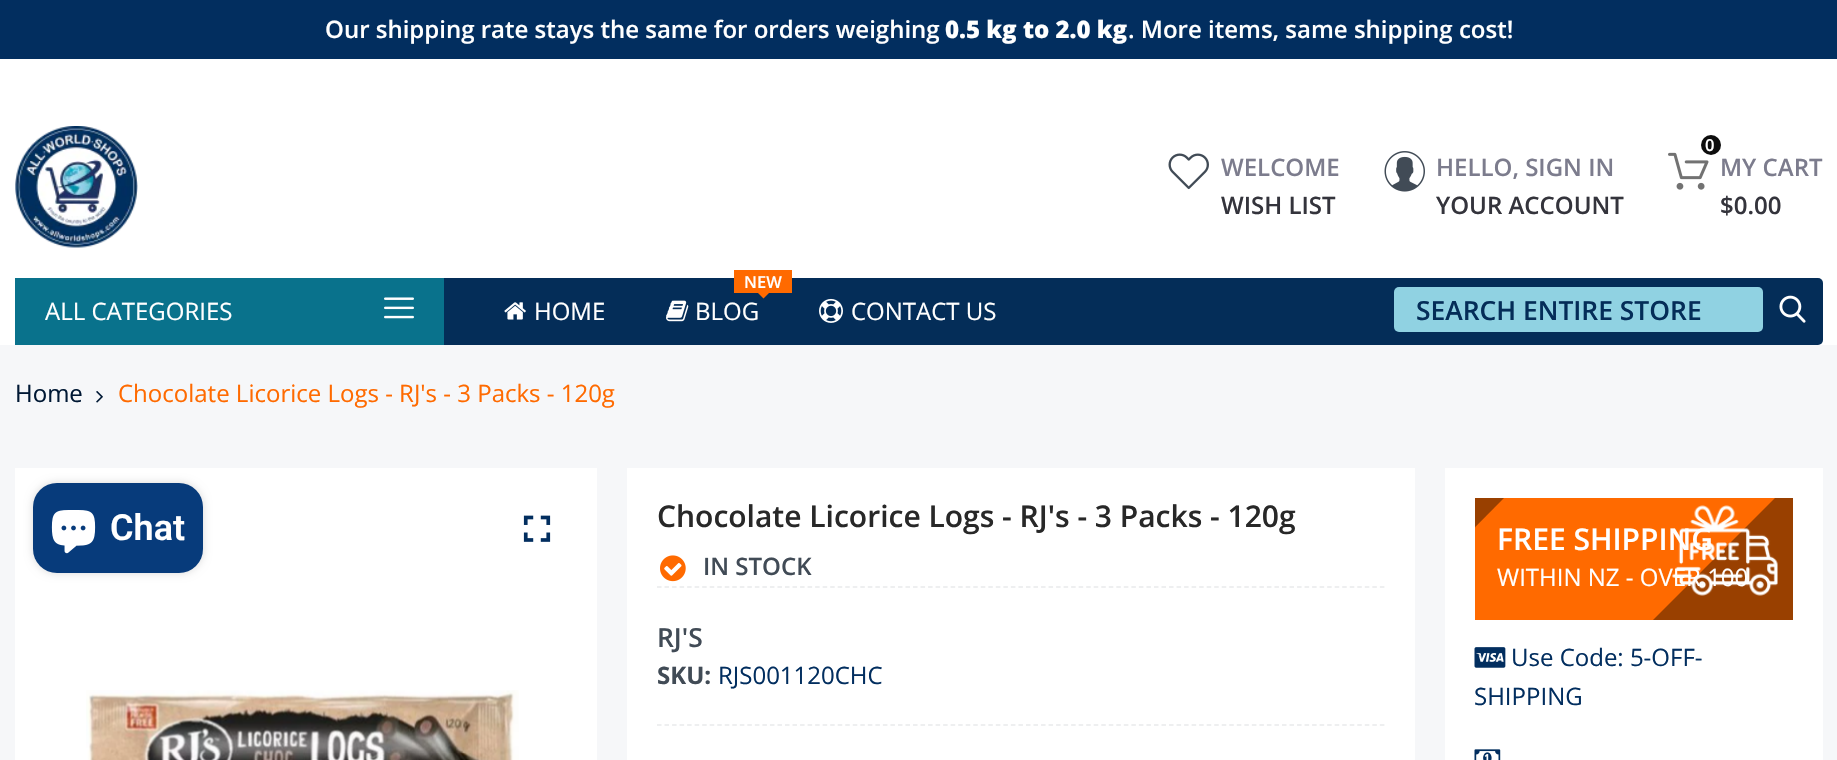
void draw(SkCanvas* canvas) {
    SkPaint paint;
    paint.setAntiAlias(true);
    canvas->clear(0xFFF6F7F9);
    paint.setColor(0xFFFFFFFF);
    canvas->drawRect(SkRect::MakeXYWH(0, 59, 1837, 286), paint);
    paint.setColor(0xFF022E5F);
    canvas->drawRect(SkRect::MakeXYWH(0, 0, 1837, 59), paint);
    SkFont font1(fontMgr->matchFamilyStyle("Open Sans", SkFontStyle(600, SkFontStyle::kNormal_Width, SkFontStyle::kUpright_Slant)), 24);
    font1.setSubpixel(true);
    paint.setColor(0xFFFFFFFF);
    canvas->drawString("Our shipping rate stays the same for orders weighing", 325, 38, font1, paint);
    SkFont font2(fontMgr->matchFamilyStyle("Open Sans", SkFontStyle(800, SkFontStyle::kNormal_Width, SkFontStyle::kUpright_Slant)), 24);
    font2.setSubpixel(true);
    canvas->drawString("0.5 kg to 2.0 kg", 945, 38, font2, paint);
    canvas->drawString(". More items, same shipping cost!", 1128, 38, font1, paint);
    canvas->drawImageRect(SkImages::DeferredFromEncodedData(SkData::MakeFromFileName("img1.png")), SkRect::MakeXYWH(15, 126, 123, 122), SkSamplingOptions());
    canvas->drawImageRect(SkImages::DeferredFromEncodedData(SkData::MakeFromFileName("img2.png")), SkRect::MakeXYWH(1168, 153, 41, 37), SkSamplingOptions());
    paint.setColor(0xFF7C7C8D);
    canvas->drawString("WELCOME", 1221, 176, font1, paint);
    paint.setColor(0xFF34343C);
    canvas->drawString("WISH LIST", 1221, 214, font1, paint);
    canvas->drawImageRect(SkImages::DeferredFromEncodedData(SkData::MakeFromFileName("img3.png")), SkRect::MakeXYWH(1384, 151, 41, 41), SkSamplingOptions());
    paint.setColor(0xFF7C7C8D);
    canvas->drawString("HELLO, SIGN IN", 1436, 176, font1, paint);
    paint.setColor(0xFF34343C);
    canvas->drawString("YOUR ACCOUNT", 1436, 214, font1, paint);
    canvas->drawImageRect(SkImages::DeferredFromEncodedData(SkData::MakeFromFileName("img4.png")), SkRect::MakeXYWH(1668, 152, 41, 38), SkSamplingOptions());
    paint.setColor(0xFF0D0D0D);
    canvas->drawCircle(1711, 145, 10, paint);
    SkFont font3(fontMgr->matchFamilyStyle("Open Sans", SkFontStyle(600, SkFontStyle::kNormal_Width, SkFontStyle::kUpright_Slant)), 16.5f);
    font3.setSubpixel(true);
    paint.setColor(0xFFFFFFFF);
    canvas->drawString("0", 1705, 151, font3, paint);
    paint.setColor(0xFF7C7C8D);
    canvas->drawString("MY CART", 1720, 176, font1, paint);
    paint.setColor(0xFF34343C);
    canvas->drawString("$0.00", 1720, 214, font1, paint);
    paint.setColor(0xFF042D58);
    canvas->drawRoundRect(SkRect::MakeXYWH(15, 278, 1808, 67), 5, 5, paint);
    paint.setColor(0xFF09728C);
    canvas->drawRect(SkRect::MakeXYWH(15, 278, 429, 67), paint);
    SkFont font4(fontMgr->matchFamilyStyle("Open Sans", SkFontStyle::Normal()), 24);
    font4.setSubpixel(true);
    paint.setColor(0xFFFFFFFF);
    canvas->drawString("ALL CATEGORIES", 45, 320, font4, paint);
    canvas->drawImageRect(SkImages::DeferredFromEncodedData(SkData::MakeFromFileName("img5.png")), SkRect::MakeXYWH(384, 297, 30, 22), SkSamplingOptions());
    canvas->drawImageRect(SkImages::DeferredFromEncodedData(SkData::MakeFromFileName("img6.png")), SkRect::MakeXYWH(504, 302, 22, 18), SkSamplingOptions());
    canvas->drawString("HOME", 534, 320, font4, paint);
    paint.setColor(0xFFFF6A00);
    canvas->drawRect(SkRect::MakeXYWH(734, 270, 58, 23), paint);
    paint.setColor(0xFFFFFFFF);
    canvas->drawString("NEW", 744, 288, font3, paint);
    paint.setColor(0xFFFF6A00);
    canvas->drawPath(SkPathBuilder().moveTo(757.5f, 292.5f).lineTo(769.5f, 292.5f).lineTo(763.5f, 298.5f).close().detach(), paint);
    canvas->drawImageRect(SkImages::DeferredFromEncodedData(SkData::MakeFromFileName("img7.png")), SkRect::MakeXYWH(666, 300, 23, 22), SkSamplingOptions());
    paint.setColor(0xFFFFFFFF);
    canvas->drawString("BLOG", 695, 320, font4, paint);
    canvas->drawImageRect(SkImages::DeferredFromEncodedData(SkData::MakeFromFileName("img8.png")), SkRect::MakeXYWH(819, 298, 24, 25), SkSamplingOptions());
    canvas->drawString("CONTACT US", 851, 320, font4, paint);
    paint.setColor(0xFF90D2E2);
    canvas->drawRoundRect(SkRect::MakeXYWH(1394, 287, 369, 45), 5, 5, paint);
    SkFont font5(fontMgr->matchFamilyStyle("Open Sans", SkFontStyle(600, SkFontStyle::kNormal_Width, SkFontStyle::kUpright_Slant)), 26.4f);
    font5.setSubpixel(true);
    paint.setColor(0xFF042D58);
    canvas->drawString("SEARCH ENTIRE STORE", 1416, 320, font5, paint);
    canvas->drawImageRect(SkImages::DeferredFromEncodedData(SkData::MakeFromFileName("img9.png")), SkRect::MakeXYWH(1779, 295, 27, 28), SkSamplingOptions());
    paint.setColor(0xFF001834);
    canvas->drawString("Home", 15, 402, font4, paint);
    canvas->drawImageRect(SkImages::DeferredFromEncodedData(SkData::MakeFromFileName("img10.png")), SkRect::MakeXYWH(96, 391, 7, 12), SkSamplingOptions());
    paint.setColor(0xFFFF6A00);
    canvas->drawString("Chocolate Licorice Logs - RJ's - 3 Packs - 120g", 118, 402, font4, paint);
    paint.setColor(0xFFFFFFFF);
    canvas->drawRect(SkRect::MakeXYWH(15, 468, 582, 292), paint);
    canvas->drawImageRect(SkImages::DeferredFromEncodedData(SkData::MakeFromFileName("img11.png")), SkRect::MakeXYWH(523, 515, 28, 27), SkSamplingOptions());
    canvas->drawImageRect(SkImages::DeferredFromEncodedData(SkData::MakeFromFileName("img12.png")), SkRect::MakeXYWH(86, 690, 433, 70), SkSamplingOptions());
    canvas->drawRect(SkRect::MakeXYWH(627, 468, 788, 292), paint);
    SkFont font6(fontMgr->matchFamilyStyle("Open Sans", SkFontStyle(600, SkFontStyle::kNormal_Width, SkFontStyle::kUpright_Slant)), 30);
    font6.setSubpixel(true);
    paint.setColor(0xFF282828);
    canvas->drawString("Chocolate Licorice Logs - RJ's - 3 Packs - 120g", 657, 527, font6, paint);
    paint.setStyle(SkPaint::kStroke_Style);
    paint.setStrokeWidth(1.5f);
    paint.setColor(0xFFE9EAEC);
    paint.setPathEffect(SkDashPathEffect::Make({{4.5f, 3.03f}}, 0));
    canvas->drawPath(SkPathBuilder().moveTo(657, 587).lineTo(1384.5f, 587).detach(), paint);
    paint.setPathEffect(nullptr);
    canvas->drawImageRect(SkImages::DeferredFromEncodedData(SkData::MakeFromFileName("img13.png")), SkRect::MakeXYWH(660, 555, 26, 27), SkSamplingOptions());
    paint.setStyle(SkPaint::kFill_Style);
    paint.setColor(0xFF414B56);
    canvas->drawString("IN STOCK", 703, 575, font1, paint);
    paint.setStyle(SkPaint::kStroke_Style);
    paint.setColor(0xFFE9EAEC);
    paint.setPathEffect(SkDashPathEffect::Make({{4.5f, 3.03f}}, 0));
    canvas->drawPath(SkPathBuilder().moveTo(657, 725).lineTo(1384.5f, 725).detach(), paint);
    paint.setPathEffect(nullptr);
    paint.setStyle(SkPaint::kFill_Style);
    paint.setColor(0xFF414B56);
    canvas->drawString("RJ'S", 657, 647, font5, paint);
    SkFont font7(fontMgr->matchFamilyStyle("Open Sans", SkFontStyle::Bold()), 24);
    font7.setSubpixel(true);
    canvas->drawString("SKU:", 657, 684, font7, paint);
    paint.setColor(0xFF022E5F);
    canvas->drawString("RJS001120CHC", 718, 684, font4, paint);
    paint.setColor(0xFFFFFFFF);
    canvas->drawRect(SkRect::MakeXYWH(1445, 468, 378, 292), paint);
    paint.setColor(0xFF994000);
    canvas->drawRect(SkRect::MakeXYWH(1475, 498, 318, 122), paint);
    canvas->save();
    canvas->clipRect(SkRect::MakeXYWH(1475, 498, 318, 122));
    paint.setColor(0xFFFF6A00);
    canvas->drawPath(SkPathBuilder().moveTo(1505, 497).lineTo(1776, 497).lineTo(1653, 620).lineTo(1383, 620).close().detach(), paint);
    canvas->restore();
    canvas->drawImageRect(SkImages::DeferredFromEncodedData(SkData::MakeFromFileName("img14.png")), SkRect::MakeXYWH(1672, 505, 106, 91), SkSamplingOptions());
    paint.setColor(0xFFFFFFFF);
    canvas->drawString("FREE SHIPPING", 1497, 550, font6, paint);
    canvas->drawString("WITHIN NZ - OVER 100", 1497, 586, font4, paint);
    canvas->drawImageRect(SkImages::DeferredFromEncodedData(SkData::MakeFromFileName("img15.png")), SkRect::MakeXYWH(1474, 647, 32, 21), SkSamplingOptions());
    paint.setColor(0xFF022E5F);
    canvas->drawString("Use Code: 5-OFF-", 1511, 666, font4, paint);
    canvas->drawString("SHIPPING", 1474, 705, font4, paint);
    canvas->drawImageRect(SkImages::DeferredFromEncodedData(SkData::MakeFromFileName("img16.png")), SkRect::MakeXYWH(1474, 749, 27, 11), SkSamplingOptions());
    paint.setColor(0x26000000);
    paint.setMaskFilter(SkMaskFilter::MakeBlur(kNormal_SkBlurStyle, 4));
    canvas->drawRoundRect(SkRect::MakeXYWH(33, 483, 170, 90), 24, 24, paint);
    paint.setMaskFilter(nullptr);
    paint.setColor(0xFF073B7B);
    canvas->drawRoundRect(SkRect::MakeXYWH(33, 483, 170, 90), 24, 24, paint);
    canvas->drawImageRect(SkImages::DeferredFromEncodedData(SkData::MakeFromFileName("img17.png")), SkRect::MakeXYWH(51, 510, 45, 44), SkSamplingOptions());
    SkFont font8(fontMgr->matchFamilyStyle("Roboto", SkFontStyle(600, SkFontStyle::kNormal_Width, SkFontStyle::kUpright_Slant)), 36);
    font8.setSubpixel(true);
    paint.setColor(0xFFFFFFFF);
    canvas->drawString("Chat", 110, 540, font8, paint);
}
